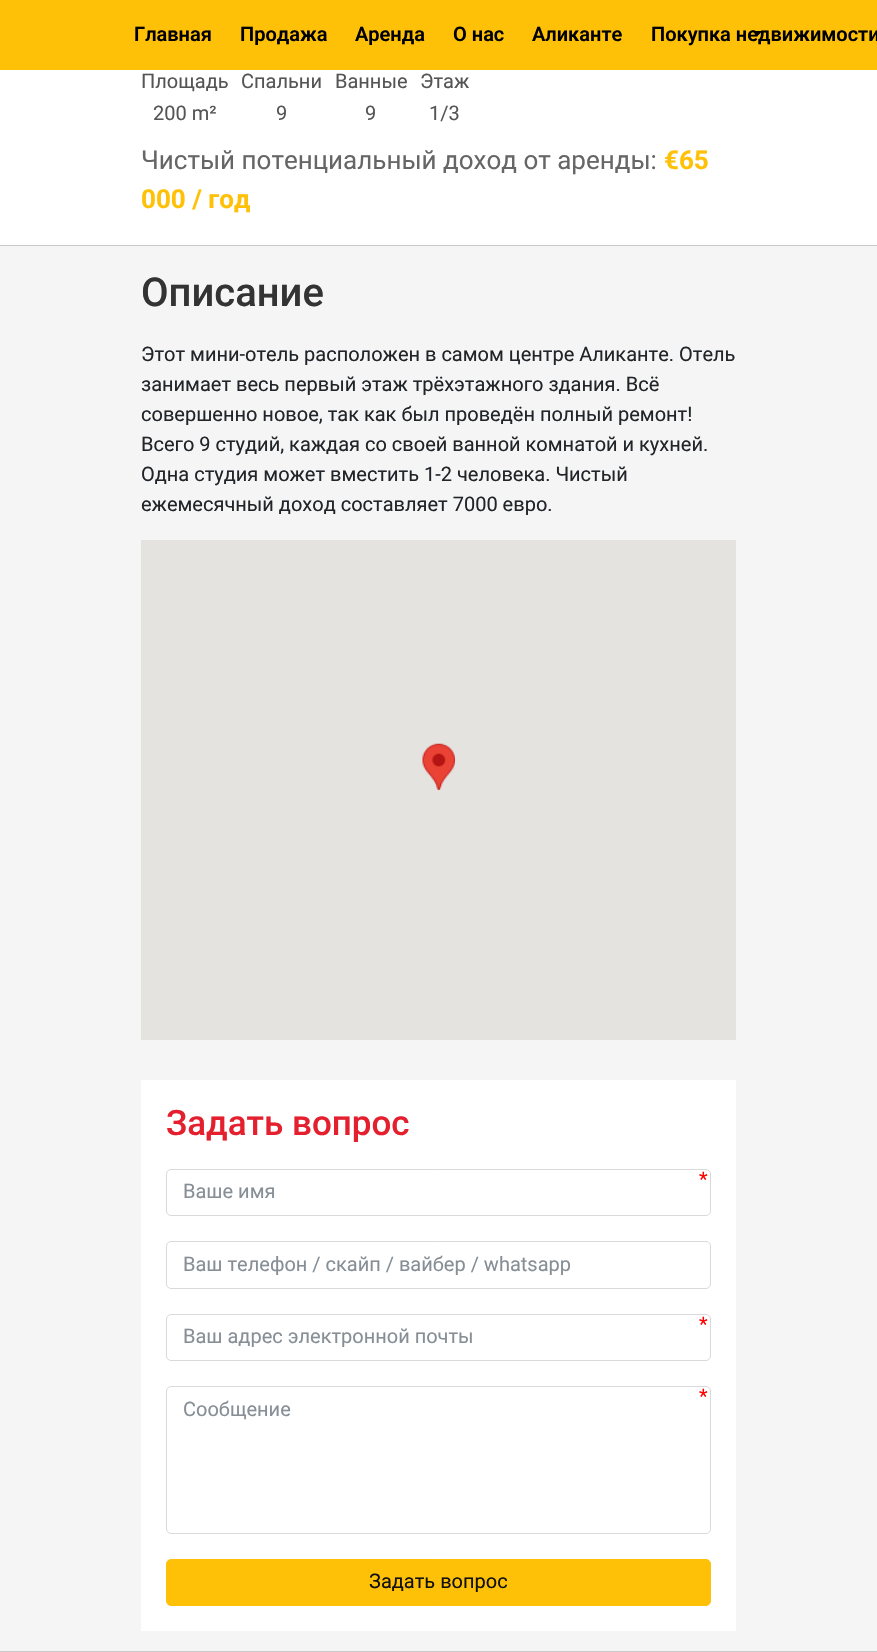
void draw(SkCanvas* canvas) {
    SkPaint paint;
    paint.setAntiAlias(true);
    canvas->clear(0xFFF4F5F4);
    paint.setColor(0xFFFFC107);
    canvas->drawRect(SkRect::MakeXYWH(0, 0, 877, 70), paint);
    SkFont font1(fontMgr->matchFamilyStyle("Roboto", SkFontStyle(600, SkFontStyle::kNormal_Width, SkFontStyle::kUpright_Slant)), 20);
    font1.setSubpixel(true);
    paint.setColor(0xFF000000);
    canvas->drawString("Главная", 134, 41, font1, paint);
    canvas->drawString("Продажа", 240, 41, font1, paint);
    canvas->drawString("Аренда", 355, 41, font1, paint);
    canvas->drawString("О нас", 453, 41, font1, paint);
    canvas->drawString("Аликанте", 532, 41, font1, paint);
    canvas->drawString("Покупка недвижимости", 651, 41, font1, paint);
    canvas->drawPath(SkPathBuilder().moveTo(752.5f, 31).lineTo(762.5f, 31).lineTo(757.5f, 36).close().detach(), paint);
    paint.setColor(0xFFFFFFFF);
    canvas->drawRect(SkRect::MakeXYWH(0, 70, 877, 175), paint);
    paint.setColor(0xFFC8C9C9);
    canvas->drawRect(SkRect::MakeXYWH(0, 245, 877, 1), paint);
    SkFont font2(fontMgr->matchFamilyStyle("Roboto", SkFontStyle::Normal()), 20);
    font2.setSubpixel(true);
    paint.setColor(0xFF555555);
    canvas->drawString("Площадь", 141, 88, font2, paint);
    canvas->drawString("200 m²", 153, 120, font2, paint);
    canvas->drawString("Спальни", 241, 88, font2, paint);
    canvas->drawString("9", 276, 120, font2, paint);
    canvas->drawString("Ванные", 335, 88, font2, paint);
    canvas->drawString("9", 365, 120, font2, paint);
    canvas->drawString("Этаж", 420, 88, font2, paint);
    canvas->drawString("1/3", 429, 120, font2, paint);
    SkFont font3(fontMgr->matchFamilyStyle("Roboto", SkFontStyle::Normal()), 26);
    font3.setSubpixel(true);
    paint.setColor(0xFF666666);
    canvas->drawString("Чистый потенциальный доход от аренды:", 141, 169, font3, paint);
    SkFont font4(fontMgr->matchFamilyStyle("Roboto", SkFontStyle::Bold()), 26);
    font4.setSubpixel(true);
    paint.setColor(0xFFFFC107);
    canvas->drawString("€65", 664, 169, font4, paint);
    canvas->drawString("000 / год", 141, 208, font4, paint);
    paint.setColor(0xFFC8C9C9);
    canvas->drawRect(SkRect::MakeXYWH(0, 1651, 877, 1), paint);
    SkFont font5(fontMgr->matchFamilyStyle("Roboto", SkFontStyle(500, SkFontStyle::kNormal_Width, SkFontStyle::kUpright_Slant)), 40);
    font5.setSubpixel(true);
    paint.setColor(0xFF333333);
    canvas->drawString("Описание", 141, 306, font5, paint);
    paint.setColor(0xFF212529);
    canvas->drawString("Этот мини-отель расположен в самом центре Аликанте. Отель", 141, 361, font2, paint);
    canvas->drawString("занимает весь первый этаж трёхэтажного здания. Всё", 141, 391, font2, paint);
    canvas->drawString("совершенно новое, так как был проведён полный ремонт!", 141, 421, font2, paint);
    canvas->drawString("Всего 9 студий, каждая со своей ванной комнатой и кухней.", 141, 451, font2, paint);
    canvas->drawString("Одна студия может вместить 1-2 человека. Чистый", 141, 481, font2, paint);
    canvas->drawString("ежемесячный доход составляет 7000 евро.", 141, 511, font2, paint);
    paint.setColor(0xFFE5E3DF);
    canvas->drawRect(SkRect::MakeXYWH(141, 540, 595, 500), paint);
    canvas->drawImageRect(SkImages::DeferredFromEncodedData(SkData::MakeFromFileName("img1.png")), SkRect::MakeXYWH(422, 743, 33, 47), SkSamplingOptions());
    paint.setColor(0xFFFFFFFF);
    canvas->drawRect(SkRect::MakeXYWH(141, 1080, 595, 551), paint);
    SkFont font6(fontMgr->matchFamilyStyle("Roboto", SkFontStyle(500, SkFontStyle::kNormal_Width, SkFontStyle::kUpright_Slant)), 35);
    font6.setSubpixel(true);
    paint.setColor(0xFFE4202F);
    canvas->drawString("Задать вопрос", 166, 1135, font6, paint);
    paint.setStyle(SkPaint::kStroke_Style);
    paint.setStrokeWidth(1);
    paint.setColor(0xFFD9D9D9);
    canvas->drawRoundRect(SkRect::MakeXYWH(166.5f, 1169.5f, 544, 46), 4.5f, 4.5f, paint);
    paint.setStyle(SkPaint::kFill_Style);
    paint.setColor(0xFFFF0000);
    canvas->drawString("*", 699, 1186, font2, paint);
    paint.setColor(0xFF868E96);
    canvas->drawString("Ваше имя", 183, 1198, font2, paint);
    paint.setStyle(SkPaint::kStroke_Style);
    paint.setColor(0xFFD9D9D9);
    canvas->drawRoundRect(SkRect::MakeXYWH(166.5f, 1241.5f, 544, 47), 4.5f, 4.5f, paint);
    paint.setStyle(SkPaint::kFill_Style);
    paint.setColor(0xFF868E96);
    canvas->drawString("Ваш телефон / скайп / вайбер / whatsapp", 183, 1271, font2, paint);
    paint.setStyle(SkPaint::kStroke_Style);
    paint.setColor(0xFFD9D9D9);
    canvas->drawRoundRect(SkRect::MakeXYWH(166.5f, 1314.5f, 544, 46), 4.5f, 4.5f, paint);
    paint.setStyle(SkPaint::kFill_Style);
    paint.setColor(0xFFFF0000);
    canvas->drawString("*", 699, 1331, font2, paint);
    paint.setColor(0xFF868E96);
    canvas->drawString("Ваш адрес электронной почты", 183, 1343, font2, paint);
    paint.setStyle(SkPaint::kStroke_Style);
    paint.setColor(0xFFD9D9D9);
    canvas->drawRoundRect(SkRect::MakeXYWH(166.5f, 1386.5f, 544, 147), 4.5f, 4.5f, paint);
    paint.setStyle(SkPaint::kFill_Style);
    paint.setColor(0xFFFF0000);
    canvas->drawString("*", 699, 1403, font2, paint);
    paint.setColor(0xFF868E96);
    canvas->drawString("Сообщение", 183, 1416, font2, paint);
    paint.setColor(0xFFFFC107);
    canvas->drawRoundRect(SkRect::MakeXYWH(166.5f, 1559.5f, 544, 46), 4.5f, 4.5f, paint);
    paint.setStyle(SkPaint::kStroke_Style);
    canvas->drawRoundRect(SkRect::MakeXYWH(166.5f, 1559.5f, 544, 46), 4.5f, 4.5f, paint);
    paint.setStyle(SkPaint::kFill_Style);
    paint.setColor(0xFF111111);
    canvas->drawString("Задать вопрос", 369, 1588, font2, paint);
}
